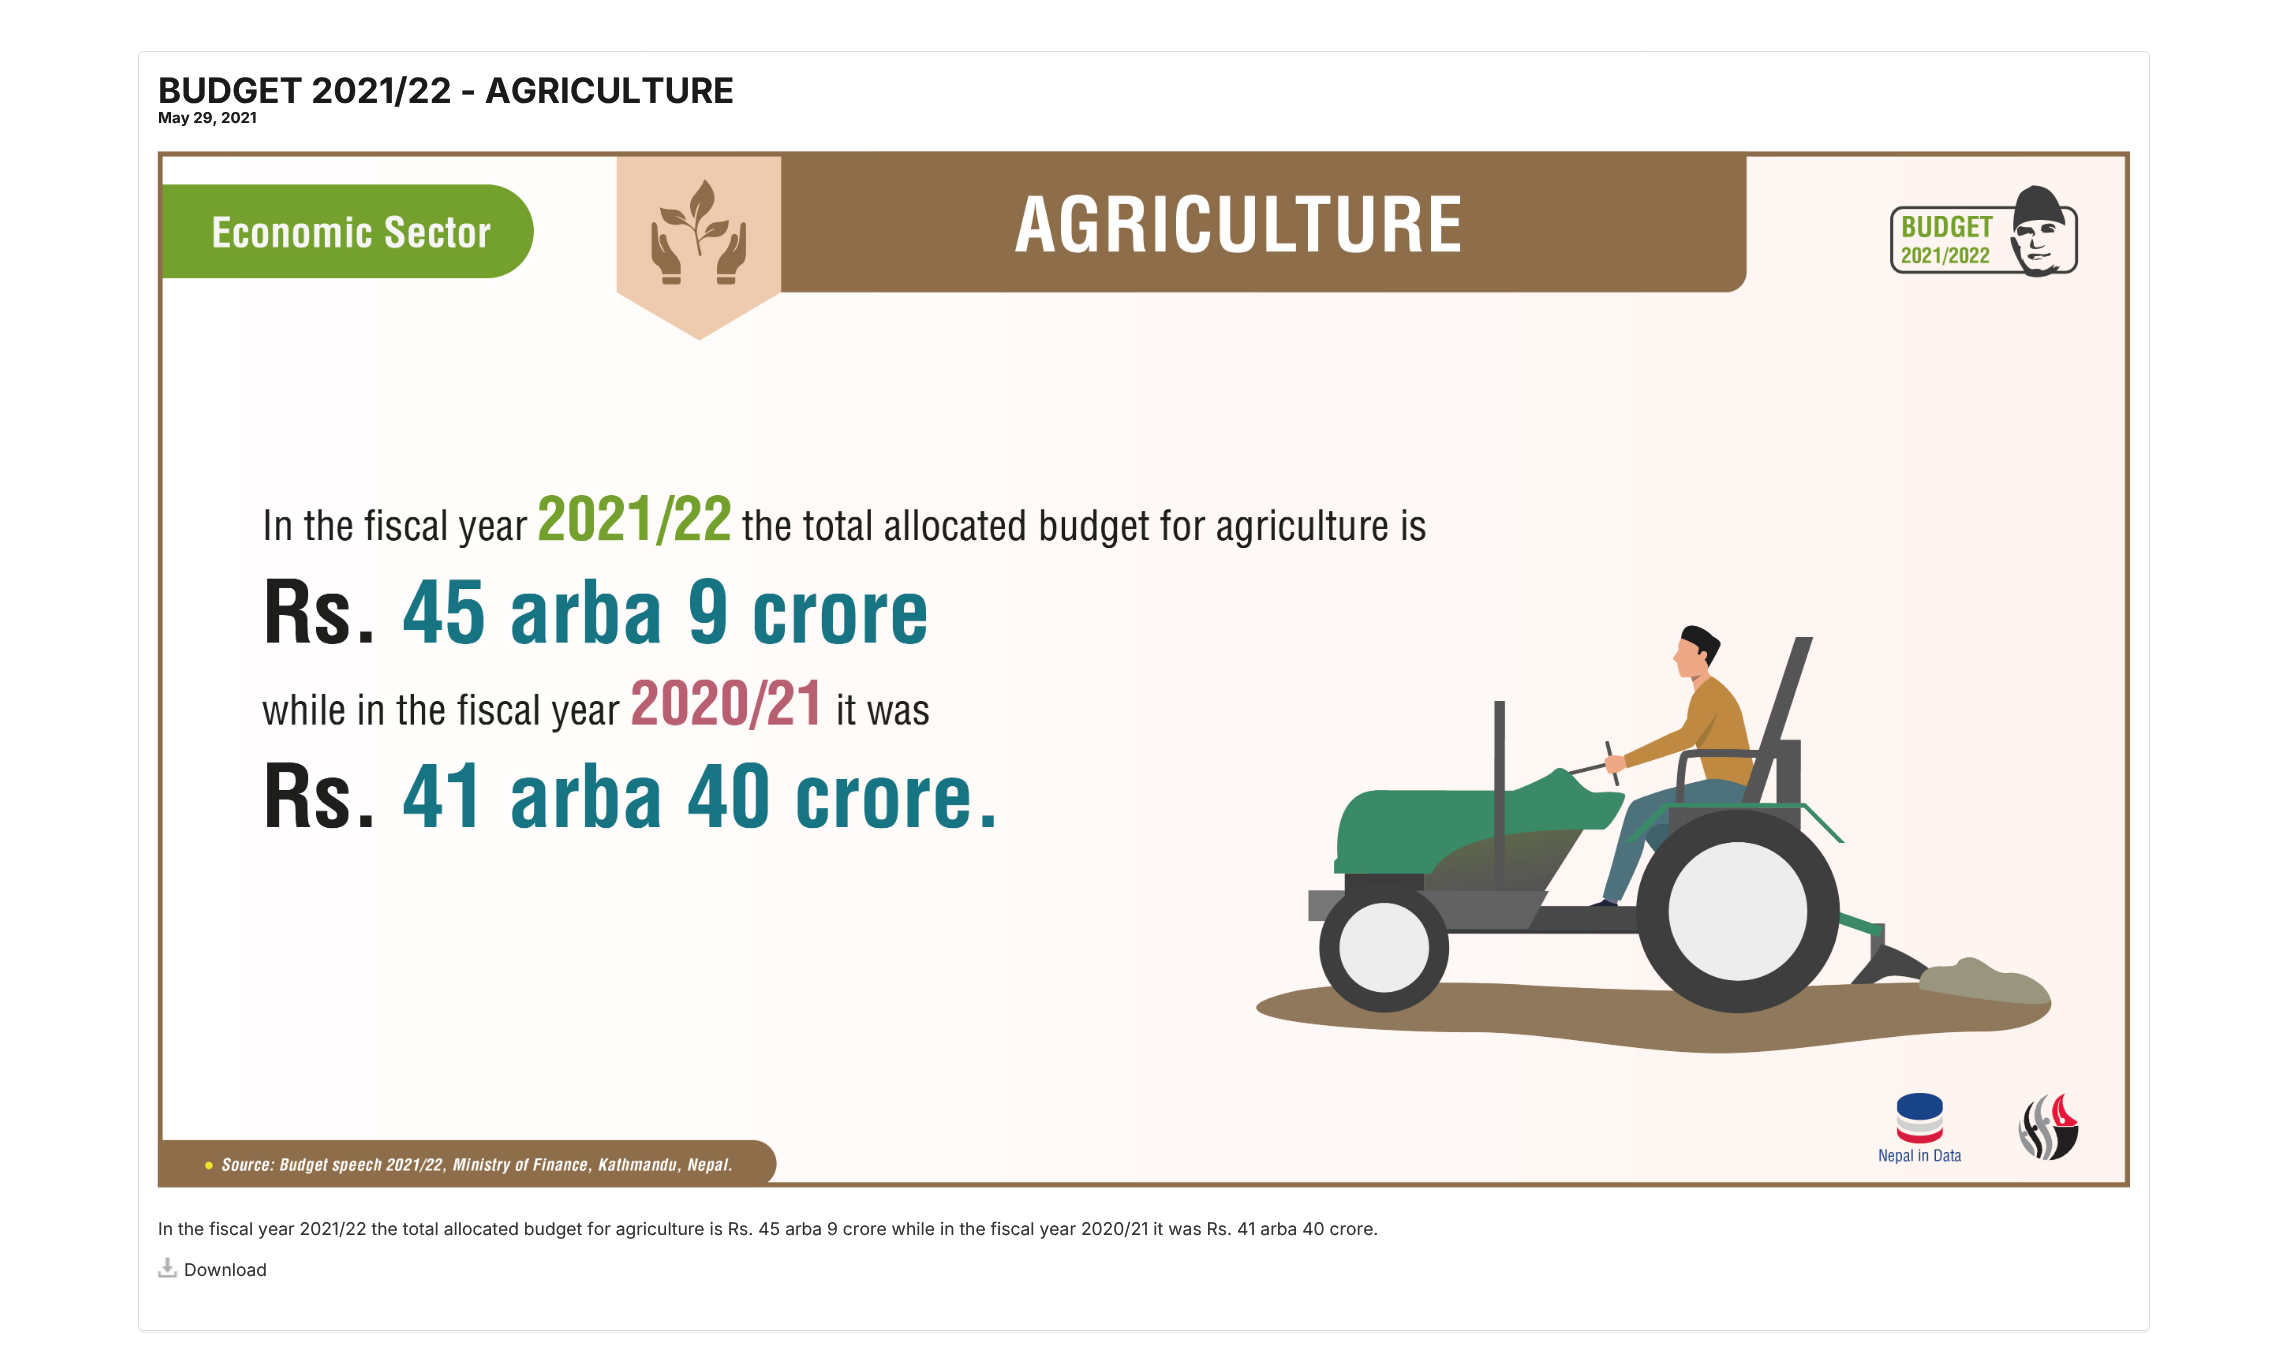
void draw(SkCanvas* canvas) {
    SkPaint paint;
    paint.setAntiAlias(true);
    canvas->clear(0xFFFFFFFF);
    paint.setColor(0x0D000000);
    paint.setMaskFilter(SkMaskFilter::MakeBlur(kNormal_SkBlurStyle, 0.5f));
    canvas->drawRoundRect(SkRect::MakeXYWH(138, 53, 2012, 1280), 5, 5, paint);
    paint.setMaskFilter(nullptr);
    paint.setColor(0xFFFFFFFF);
    canvas->drawRoundRect(SkRect::MakeXYWH(138.5f, 51.5f, 2011, 1279), 4.5f, 4.5f, paint);
    paint.setStyle(SkPaint::kStroke_Style);
    paint.setStrokeWidth(1);
    paint.setColor(0xFFDDDDDD);
    canvas->drawRoundRect(SkRect::MakeXYWH(138.5f, 51.5f, 2011, 1279), 4.5f, 4.5f, paint);
    SkFont font1(fontMgr->matchFamilyStyle("Inter", SkFontStyle::Bold()), 35);
    font1.setSubpixel(true);
    paint.setStyle(SkPaint::kFill_Style);
    paint.setColor(0xFF1A1A1A);
    canvas->drawString("BUDGET 2021/22 - AGRICULTURE", 158, 103, font1, paint);
    SkFont font2(fontMgr->matchFamilyStyle("Inter", SkFontStyle::Bold()), 15);
    font2.setSubpixel(true);
    canvas->drawString("May 29, 2021", 158, 123, font2, paint);
    canvas->drawImageRect(SkImages::DeferredFromEncodedData(SkData::MakeFromFileName("img1.png")), SkRect::MakeXYWH(157, 151, 1973, 1037), SkSamplingOptions());
    SkFont font3(fontMgr->matchFamilyStyle("Inter", SkFontStyle::Normal()), 17.5f);
    font3.setSubpixel(true);
    paint.setColor(0xFF333333);
    canvas->drawString("In the fiscal year 2021/22 the total allocated budget for agriculture is Rs. 45 arba 9 crore while in the fiscal year 2020/21 it was Rs. 41 arba 40 crore.", 158, 1235, font3, paint);
    canvas->drawImageRect(SkImages::DeferredFromEncodedData(SkData::MakeFromFileName("img2.png")), SkRect::MakeXYWH(157, 1257, 21, 21), SkSamplingOptions());
    canvas->drawString("Download", 184, 1276, font3, paint);
}
